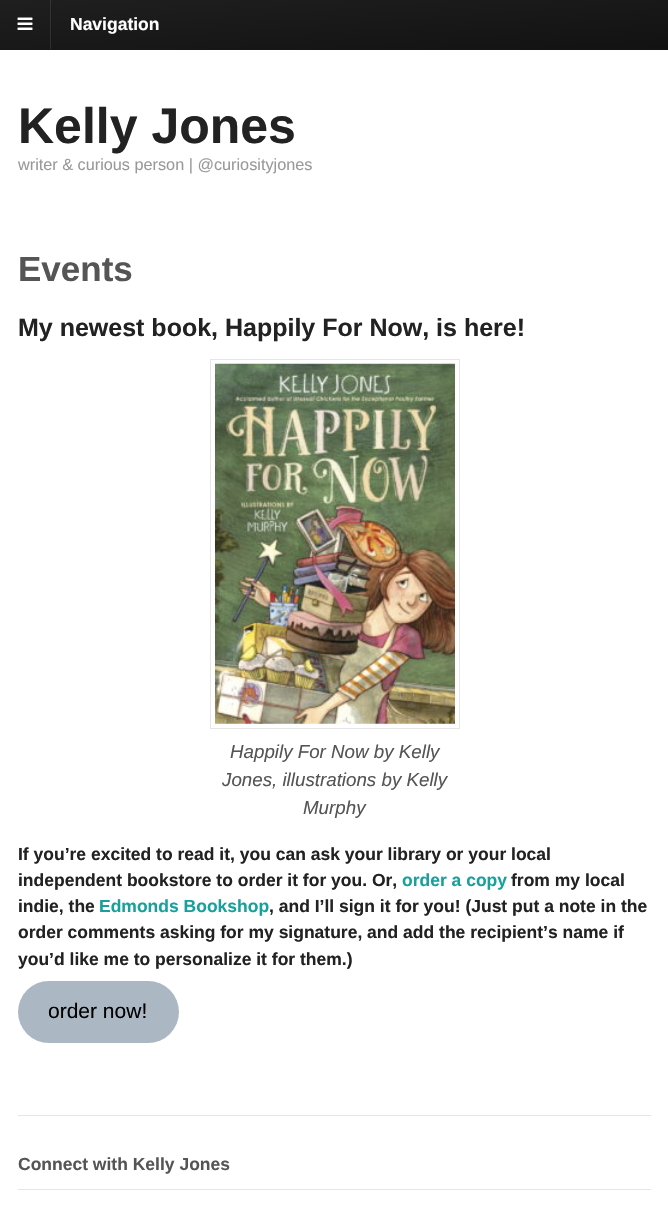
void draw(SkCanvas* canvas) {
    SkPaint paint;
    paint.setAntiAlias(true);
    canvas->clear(0xFFFFFFFF);
    {
        const SkColor colors[] = {0xFF1F1F1F, 0xFF121212};
        const float stops[] = {0, 1};
        const SkPoint ends[] = {{331, -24}, {338, 73}};
        paint.setShader(SkGradientShader::MakeLinear(ends, colors, stops, 2, SkTileMode::kClamp));
        paint.setAlpha(255);
    }
    canvas->drawRect(SkRect::MakeXYWH(0, 0, 668, 49), paint);
    {
        const SkColor colors[] = {0xFF1C1C1C, 0xFF101010};
        const float stops[] = {0, 1};
        const SkPoint ends[] = {{331, -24}, {338, 73}};
        paint.setShader(SkGradientShader::MakeLinear(ends, colors, stops, 2, SkTileMode::kClamp));
        paint.setAlpha(255);
    }
    canvas->drawRect(SkRect::MakeXYWH(51, 5, 1, 38), paint);
    {
        const SkColor colors[] = {0xFF353535, 0xFF2A2A2A};
        const float stops[] = {0, 1};
        const SkPoint ends[] = {{331, -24}, {338, 73}};
        paint.setShader(SkGradientShader::MakeLinear(ends, colors, stops, 2, SkTileMode::kClamp));
        paint.setAlpha(255);
    }
    canvas->drawRect(SkRect::MakeXYWH(50, 0, 1, 49), paint);
    {
        const SkColor colors[] = {0xFF191919, 0xFF0E0E0E};
        const float stops[] = {0, 1};
        const SkPoint ends[] = {{331, 25}, {338, 122}};
        paint.setShader(SkGradientShader::MakeLinear(ends, colors, stops, 2, SkTileMode::kClamp));
        paint.setAlpha(255);
    }
    canvas->drawRect(SkRect::MakeXYWH(0, 49, 668, 1), paint);
    canvas->drawImageRect(SkImages::DeferredFromEncodedData(SkData::MakeFromFileName("img1.png")), SkRect::MakeXYWH(17, 17, 16, 13), SkSamplingOptions());
    SkFont font1(fontMgr->matchFamilyStyle("Liberation Sans", SkFontStyle::Bold()), 17.5f);
    font1.setSubpixel(true);
    paint.setShader(nullptr);
    paint.setColor(0xFFFFFFFF);
    canvas->drawString("Navigation", 70, 30, font1, paint);
    SkFont font2(fontMgr->matchFamilyStyle("Liberation Sans", SkFontStyle::Bold()), 50);
    font2.setSubpixel(true);
    paint.setColor(0xFF222222);
    canvas->drawString("Kelly Jones", 18, 143, font2, paint);
    SkFont font3(fontMgr->matchFamilyStyle("Liberation Sans", SkFontStyle::Normal()), 16.25f);
    font3.setSubpixel(true);
    paint.setColor(0xFF999999);
    canvas->drawString("writer & curious person | @curiosityjones", 18, 170, font3, paint);
    SkFont font4(fontMgr->matchFamilyStyle("Liberation Sans", SkFontStyle::Bold()), 35);
    font4.setSubpixel(true);
    paint.setColor(0xFF555555);
    canvas->drawString("Events", 18, 281, font4, paint);
    SkFont font5(fontMgr->matchFamilyStyle("Liberation Sans", SkFontStyle::Bold()), 25);
    font5.setSubpixel(true);
    paint.setColor(0xFF222222);
    canvas->drawString("My newest book, Happily For Now, is here!", 18, 336, font5, paint);
    paint.setStyle(SkPaint::kStroke_Style);
    paint.setStrokeWidth(1);
    paint.setColor(0xFFE6E6E6);
    canvas->drawRect(SkRect::MakeXYWH(210.5f, 359.5f, 249, 369), paint);
    canvas->drawImageRect(SkImages::DeferredFromEncodedData(SkData::MakeFromFileName("img2.png")), SkRect::MakeXYWH(215, 363, 240, 361), SkSamplingOptions());
    SkFont font6(fontMgr->matchFamilyStyle("Liberation Sans", SkFontStyle::Italic()), 18.75f);
    font6.setSubpixel(true);
    paint.setStyle(SkPaint::kFill_Style);
    paint.setColor(0xFF555555);
    canvas->drawString("Happily For Now by Kelly", 230, 758, font6, paint);
    canvas->drawString("Jones, illustrations by Kelly", 222, 786, font6, paint);
    canvas->drawString("Murphy", 303, 814, font6, paint);
    paint.setColor(0xFF222222);
    canvas->drawString("If you’re excited to read it, you can ask your library or your local", 18, 860, font1, paint);
    canvas->drawString("independent bookstore to order it for you. Or,", 18, 886, font1, paint);
    paint.setColor(0xFF18A09C);
    canvas->drawString("order a copy", 402, 886, font1, paint);
    paint.setColor(0xFF222222);
    canvas->drawString("from my local", 511, 886, font1, paint);
    canvas->drawString("indie, the", 18, 912, font1, paint);
    paint.setColor(0xFF18A09C);
    canvas->drawString("Edmonds Bookshop", 99, 912, font1, paint);
    paint.setColor(0xFF222222);
    canvas->drawString(", and I’ll sign it for you! (Just put a note in the", 269, 912, font1, paint);
    canvas->drawString("order comments asking for my signature, and add the recipient’s name if", 18, 938, font1, paint);
    canvas->drawString("you’d like me to personalize it for them.)", 18, 965, font1, paint);
    paint.setColor(0xFFABB8C3);
    canvas->drawRoundRect(SkRect::MakeXYWH(18, 981, 161, 62), 31, 31, paint);
    SkFont font7(fontMgr->matchFamilyStyle("Liberation Sans", SkFontStyle::Normal()), 21);
    font7.setSubpixel(true);
    paint.setColor(0xFF000000);
    canvas->drawString("order now!", 48, 1018, font7, paint);
    paint.setColor(0xFFE6E6E6);
    canvas->drawRect(SkRect::MakeXYWH(18, 1115, 633, 1), paint);
    canvas->drawRect(SkRect::MakeXYWH(18, 1189, 633, 1), paint);
    paint.setColor(0xFF555555);
    canvas->drawString("Connect with Kelly Jones", 18, 1170, font1, paint);
}
